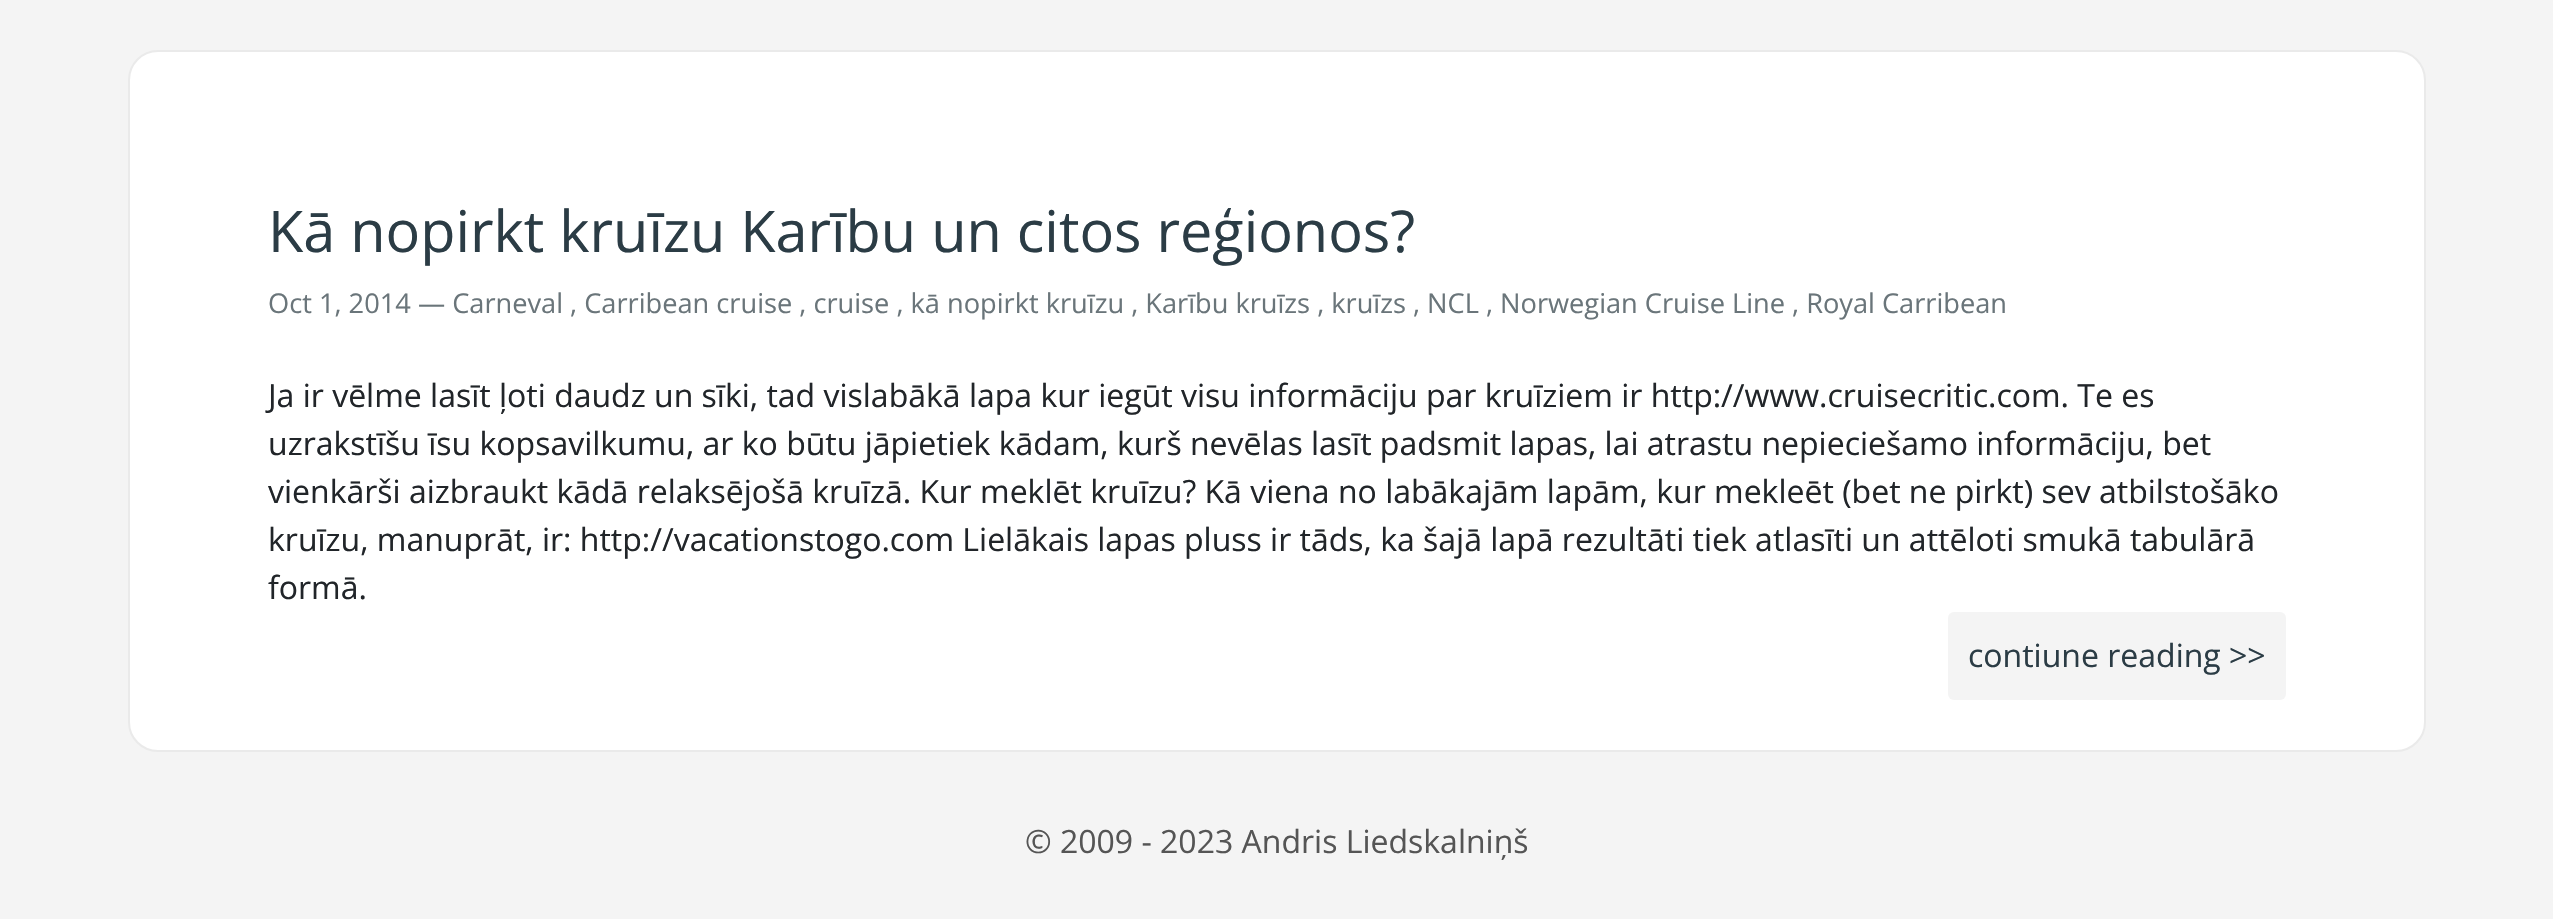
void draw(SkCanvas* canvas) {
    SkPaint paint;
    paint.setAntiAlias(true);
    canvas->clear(0xFFF4F4F4);
    paint.setColor(0xFFFFFFFF);
    canvas->drawRoundRect(SkRect::MakeXYWH(129, 51, 2296, 700), 29, 29, paint);
    paint.setStyle(SkPaint::kStroke_Style);
    paint.setStrokeWidth(2);
    paint.setColor(0xFFEAEAEA);
    canvas->drawRoundRect(SkRect::MakeXYWH(129, 51, 2296, 700), 29, 29, paint);
    SkFont font1(fontMgr->matchFamilyStyle("Open Sans", SkFontStyle::Normal()), 57.6f);
    font1.setSubpixel(true);
    paint.setStyle(SkPaint::kFill_Style);
    paint.setColor(0xFF2B3C45);
    canvas->drawString("Kā nopirkt kruīzu Karību un citos reģionos?", 268, 252, font1, paint);
    SkFont font2(fontMgr->matchFamilyStyle("Open Sans", SkFontStyle::Normal()), 27.2f);
    font2.setSubpixel(true);
    paint.setColor(0xFF6A757A);
    canvas->drawString("Oct 1, 2014 — Carneval , Carribean cruise , cruise , kā nopirkt kruīzu , Karību kruīzs , kruīzs , NCL , Norwegian Cruise Line , Royal Carribean", 268, 313, font2, paint);
    SkFont font3(fontMgr->matchFamilyStyle("Open Sans", SkFontStyle::Normal()), 32);
    font3.setSubpixel(true);
    paint.setColor(0xFF212529);
    canvas->drawString("Ja ir vēlme lasīt ļoti daudz un sīki, tad vislabākā lapa kur iegūt visu informāciju par kruīziem ir http://www.cruisecritic.com. Te es", 268, 407, font3, paint);
    canvas->drawString("uzrakstīšu īsu kopsavilkumu, ar ko būtu jāpietiek kādam, kurš nevēlas lasīt padsmit lapas, lai atrastu nepieciešamo informāciju, bet", 268, 455, font3, paint);
    canvas->drawString("vienkārši aizbraukt kādā relaksējošā kruīzā. Kur meklēt kruīzu? Kā viena no labākajām lapām, kur mekleēt (bet ne pirkt) sev atbilstošāko", 268, 503, font3, paint);
    canvas->drawString("kruīzu, manuprāt, ir: http://vacationstogo.com Lielākais lapas pluss ir tāds, ka šajā lapā rezultāti tiek atlasīti un attēloti smukā tabulārā", 268, 551, font3, paint);
    canvas->drawString("formā.", 268, 599, font3, paint);
    paint.setColor(0xFFF4F4F4);
    canvas->drawRoundRect(SkRect::MakeXYWH(1948, 612, 338, 88), 6, 6, paint);
    paint.setColor(0xFF2B3C45);
    canvas->drawString("contiune reading >>", 1968, 667, font3, paint);
    paint.setColor(0xFF555555);
    canvas->drawString("© 2009 - 2023 Andris Liedskalniņš", 1025, 853, font3, paint);
}
